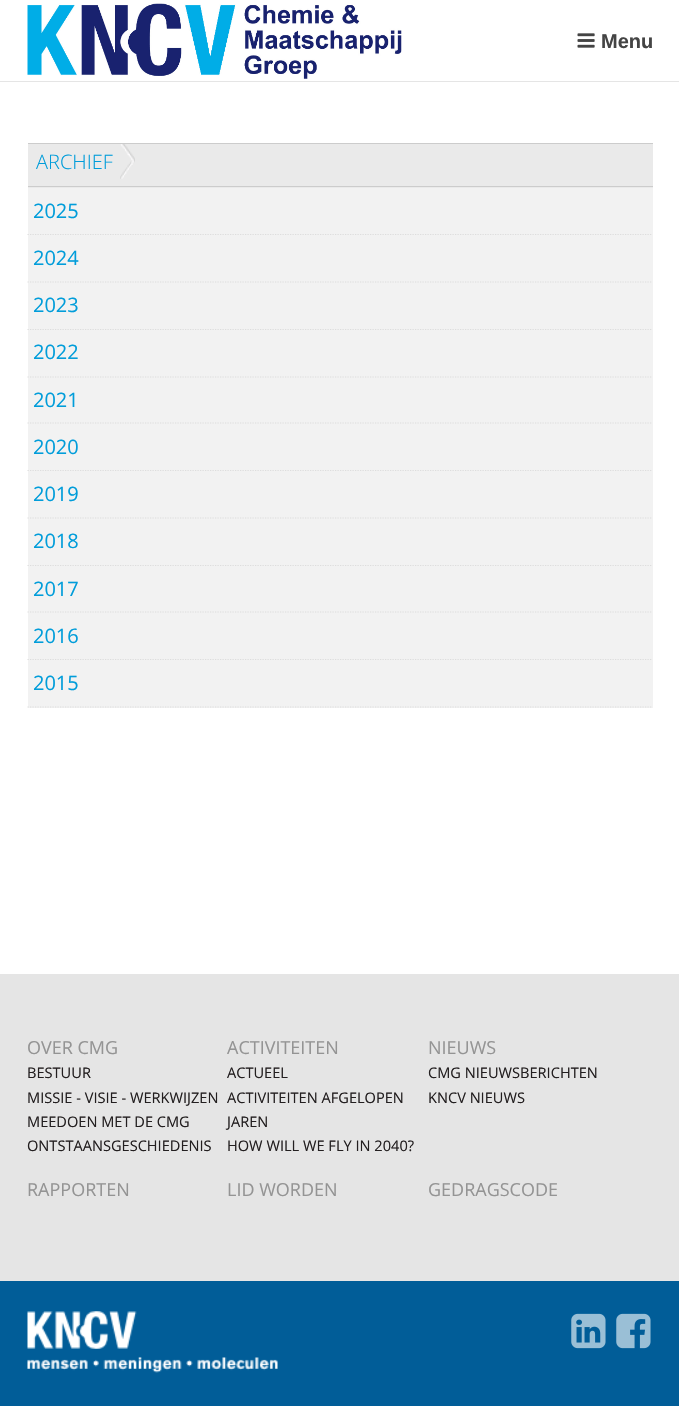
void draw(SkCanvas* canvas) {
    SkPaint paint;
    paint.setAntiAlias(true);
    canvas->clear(0xFFFFFFFF);
    paint.setColor(0xFFE5E5E5);
    canvas->drawRect(SkRect::MakeXYWH(0, 81, 679, 1), paint);
    canvas->drawImageRect(SkImages::DeferredFromEncodedData(SkData::MakeFromFileName("img1.png")), SkRect::MakeXYWH(27, 3, 375, 76), SkSamplingOptions());
    canvas->drawImageRect(SkImages::DeferredFromEncodedData(SkData::MakeFromFileName("img2.png")), SkRect::MakeXYWH(577, 33, 18, 15), SkSamplingOptions());
    SkFont font1(fontMgr->matchFamilyStyle("Liberation Sans", SkFontStyle::Bold()), 20);
    font1.setSubpixel(true);
    paint.setColor(0xFF444444);
    canvas->drawString("Menu", 601, 48, font1, paint);
    paint.setColor(0xFFEAEAEA);
    canvas->drawRect(SkRect::MakeXYWH(28, 144, 625, 44), paint);
    paint.setColor(0xFFCCCCCC);
    canvas->drawRect(SkRect::MakeXYWH(28, 143, 625, 1), paint);
    canvas->drawRect(SkRect::MakeXYWH(28, 186, 625, 1), paint);
    canvas->drawImageRect(SkImages::DeferredFromEncodedData(SkData::MakeFromFileName("img3.png")), SkRect::MakeXYWH(120, 144, 15, 35), SkSamplingOptions());
    SkFont font2(fontMgr->matchFamilyStyle("Open Sans", SkFontStyle(300, SkFontStyle::kNormal_Width, SkFontStyle::kUpright_Slant)), 20);
    font2.setSubpixel(true);
    paint.setColor(0xFF019DDA);
    canvas->drawString("ARCHIEF", 36, 169, font2, paint);
    paint.setColor(0xFFF2F2F2);
    canvas->drawRect(SkRect::MakeXYWH(28, 188, 625, 520), paint);
    paint.setStyle(SkPaint::kStroke_Style);
    paint.setStrokeWidth(1.2f);
    paint.setColor(0xFFDDDDDD);
    paint.setPathEffect(SkDashPathEffect::Make({{1.25f, 1.25f}}, 0));
    canvas->drawPath(SkPathBuilder().moveTo(27.5f, 234.5f).lineTo(652.5f, 234.5f).detach(), paint);
    paint.setPathEffect(nullptr);
    SkFont font3(fontMgr->matchFamilyStyle("Open Sans", SkFontStyle::Normal()), 20);
    font3.setSubpixel(true);
    paint.setStyle(SkPaint::kFill_Style);
    paint.setColor(0xFF019DDA);
    canvas->drawString("2025", 33, 218, font3, paint);
    paint.setStyle(SkPaint::kStroke_Style);
    paint.setColor(0xFFDDDDDD);
    paint.setPathEffect(SkDashPathEffect::Make({{1.25f, 1.25f}}, 0));
    canvas->drawPath(SkPathBuilder().moveTo(27.5f, 282).lineTo(652.5f, 282).detach(), paint);
    paint.setPathEffect(nullptr);
    paint.setStyle(SkPaint::kFill_Style);
    paint.setColor(0xFF019DDA);
    canvas->drawString("2024", 33, 265, font3, paint);
    paint.setStyle(SkPaint::kStroke_Style);
    paint.setColor(0xFFDDDDDD);
    paint.setPathEffect(SkDashPathEffect::Make({{1.25f, 1.25f}}, 0));
    canvas->drawPath(SkPathBuilder().moveTo(27.5f, 329.5f).lineTo(652.5f, 329.5f).detach(), paint);
    paint.setPathEffect(nullptr);
    paint.setStyle(SkPaint::kFill_Style);
    paint.setColor(0xFF019DDA);
    canvas->drawString("2023", 33, 312, font3, paint);
    paint.setStyle(SkPaint::kStroke_Style);
    paint.setColor(0xFFDDDDDD);
    paint.setPathEffect(SkDashPathEffect::Make({{1.25f, 1.25f}}, 0));
    canvas->drawPath(SkPathBuilder().moveTo(27.5f, 377).lineTo(652.5f, 377).detach(), paint);
    paint.setPathEffect(nullptr);
    paint.setStyle(SkPaint::kFill_Style);
    paint.setColor(0xFF019DDA);
    canvas->drawString("2022", 33, 359, font3, paint);
    paint.setStyle(SkPaint::kStroke_Style);
    paint.setColor(0xFFDDDDDD);
    paint.setPathEffect(SkDashPathEffect::Make({{1.25f, 1.25f}}, 0));
    canvas->drawPath(SkPathBuilder().moveTo(27.5f, 423).lineTo(652.5f, 423).detach(), paint);
    paint.setPathEffect(nullptr);
    paint.setStyle(SkPaint::kFill_Style);
    paint.setColor(0xFF019DDA);
    canvas->drawString("2021", 33, 407, font3, paint);
    paint.setStyle(SkPaint::kStroke_Style);
    paint.setColor(0xFFDDDDDD);
    paint.setPathEffect(SkDashPathEffect::Make({{1.25f, 1.25f}}, 0));
    canvas->drawPath(SkPathBuilder().moveTo(27.5f, 470.5f).lineTo(652.5f, 470.5f).detach(), paint);
    paint.setPathEffect(nullptr);
    paint.setStyle(SkPaint::kFill_Style);
    paint.setColor(0xFF019DDA);
    canvas->drawString("2020", 33, 454, font3, paint);
    paint.setStyle(SkPaint::kStroke_Style);
    paint.setColor(0xFFDDDDDD);
    paint.setPathEffect(SkDashPathEffect::Make({{1.25f, 1.25f}}, 0));
    canvas->drawPath(SkPathBuilder().moveTo(27.5f, 518).lineTo(652.5f, 518).detach(), paint);
    paint.setPathEffect(nullptr);
    paint.setStyle(SkPaint::kFill_Style);
    paint.setColor(0xFF019DDA);
    canvas->drawString("2019", 33, 501, font3, paint);
    paint.setStyle(SkPaint::kStroke_Style);
    paint.setColor(0xFFDDDDDD);
    paint.setPathEffect(SkDashPathEffect::Make({{1.25f, 1.25f}}, 0));
    canvas->drawPath(SkPathBuilder().moveTo(27.5f, 565.5f).lineTo(652.5f, 565.5f).detach(), paint);
    paint.setPathEffect(nullptr);
    paint.setStyle(SkPaint::kFill_Style);
    paint.setColor(0xFF019DDA);
    canvas->drawString("2018", 33, 548, font3, paint);
    paint.setStyle(SkPaint::kStroke_Style);
    paint.setColor(0xFFDDDDDD);
    paint.setPathEffect(SkDashPathEffect::Make({{1.25f, 1.25f}}, 0));
    canvas->drawPath(SkPathBuilder().moveTo(27.5f, 612).lineTo(652.5f, 612).detach(), paint);
    paint.setPathEffect(nullptr);
    paint.setStyle(SkPaint::kFill_Style);
    paint.setColor(0xFF019DDA);
    canvas->drawString("2017", 33, 596, font3, paint);
    paint.setStyle(SkPaint::kStroke_Style);
    paint.setColor(0xFFDDDDDD);
    paint.setPathEffect(SkDashPathEffect::Make({{1.25f, 1.25f}}, 0));
    canvas->drawPath(SkPathBuilder().moveTo(27.5f, 659.5f).lineTo(652.5f, 659.5f).detach(), paint);
    paint.setPathEffect(nullptr);
    paint.setStyle(SkPaint::kFill_Style);
    paint.setColor(0xFF019DDA);
    canvas->drawString("2016", 33, 643, font3, paint);
    paint.setStyle(SkPaint::kStroke_Style);
    paint.setColor(0xFFDDDDDD);
    paint.setPathEffect(SkDashPathEffect::Make({{1.25f, 1.25f}}, 0));
    canvas->drawPath(SkPathBuilder().moveTo(27.5f, 707).lineTo(652.5f, 707).detach(), paint);
    paint.setPathEffect(nullptr);
    paint.setStyle(SkPaint::kFill_Style);
    paint.setColor(0xFF019DDA);
    canvas->drawString("2015", 33, 690, font3, paint);
    paint.setColor(0xFFE5E5E5);
    canvas->drawRect(SkRect::MakeXYWH(0, 974, 679, 307), paint);
    SkFont font4(fontMgr->matchFamilyStyle("Open Sans", SkFontStyle::Normal()), 18);
    font4.setSubpixel(true);
    paint.setColor(0xFF949494);
    canvas->drawString("OVER CMG", 27, 1054, font4, paint);
    SkFont font5(fontMgr->matchFamilyStyle("Open Sans", SkFontStyle::Normal()), 14.6f);
    font5.setSubpixel(true);
    paint.setColor(0xFF231F20);
    canvas->drawString("BESTUUR", 27, 1078, font5, paint);
    canvas->drawString("MISSIE - VISIE - WERKWIJZEN", 27, 1103, font5, paint);
    canvas->drawString("MEEDOEN MET DE CMG", 27, 1127, font5, paint);
    canvas->drawString("ONTSTAANSGESCHIEDENIS", 27, 1151, font5, paint);
    paint.setColor(0xFF949494);
    canvas->drawString("ACTIVITEITEN", 227, 1054, font4, paint);
    paint.setColor(0xFF231F20);
    canvas->drawString("ACTUEEL", 227, 1078, font5, paint);
    canvas->drawString("ACTIVITEITEN AFGELOPEN", 227, 1103, font5, paint);
    canvas->drawString("JAREN", 227, 1127, font5, paint);
    canvas->drawString("HOW WILL WE FLY IN 2040?", 227, 1151, font5, paint);
    paint.setColor(0xFF949494);
    canvas->drawString("NIEUWS", 428, 1054, font4, paint);
    paint.setColor(0xFF231F20);
    canvas->drawString("CMG NIEUWSBERICHTEN", 428, 1078, font5, paint);
    canvas->drawString("KNCV NIEUWS", 428, 1103, font5, paint);
    paint.setColor(0xFF949494);
    canvas->drawString("RAPPORTEN", 27, 1196, font4, paint);
    canvas->drawString("LID WORDEN", 227, 1196, font4, paint);
    canvas->drawString("GEDRAGSCODE", 428, 1196, font4, paint);
    paint.setColor(0xFF015D98);
    canvas->drawRect(SkRect::MakeXYWH(0, 1281, 679, 125), paint);
    canvas->drawImageRect(SkImages::DeferredFromEncodedData(SkData::MakeFromFileName("img4.png")), SkRect::MakeXYWH(27, 1311, 251, 62), SkSamplingOptions());
    canvas->drawImageRect(SkImages::DeferredFromEncodedData(SkData::MakeFromFileName("img5.png")), SkRect::MakeXYWH(571, 1313, 35, 36), SkSamplingOptions());
    canvas->drawImageRect(SkImages::DeferredFromEncodedData(SkData::MakeFromFileName("img6.png")), SkRect::MakeXYWH(616, 1313, 35, 36), SkSamplingOptions());
}
